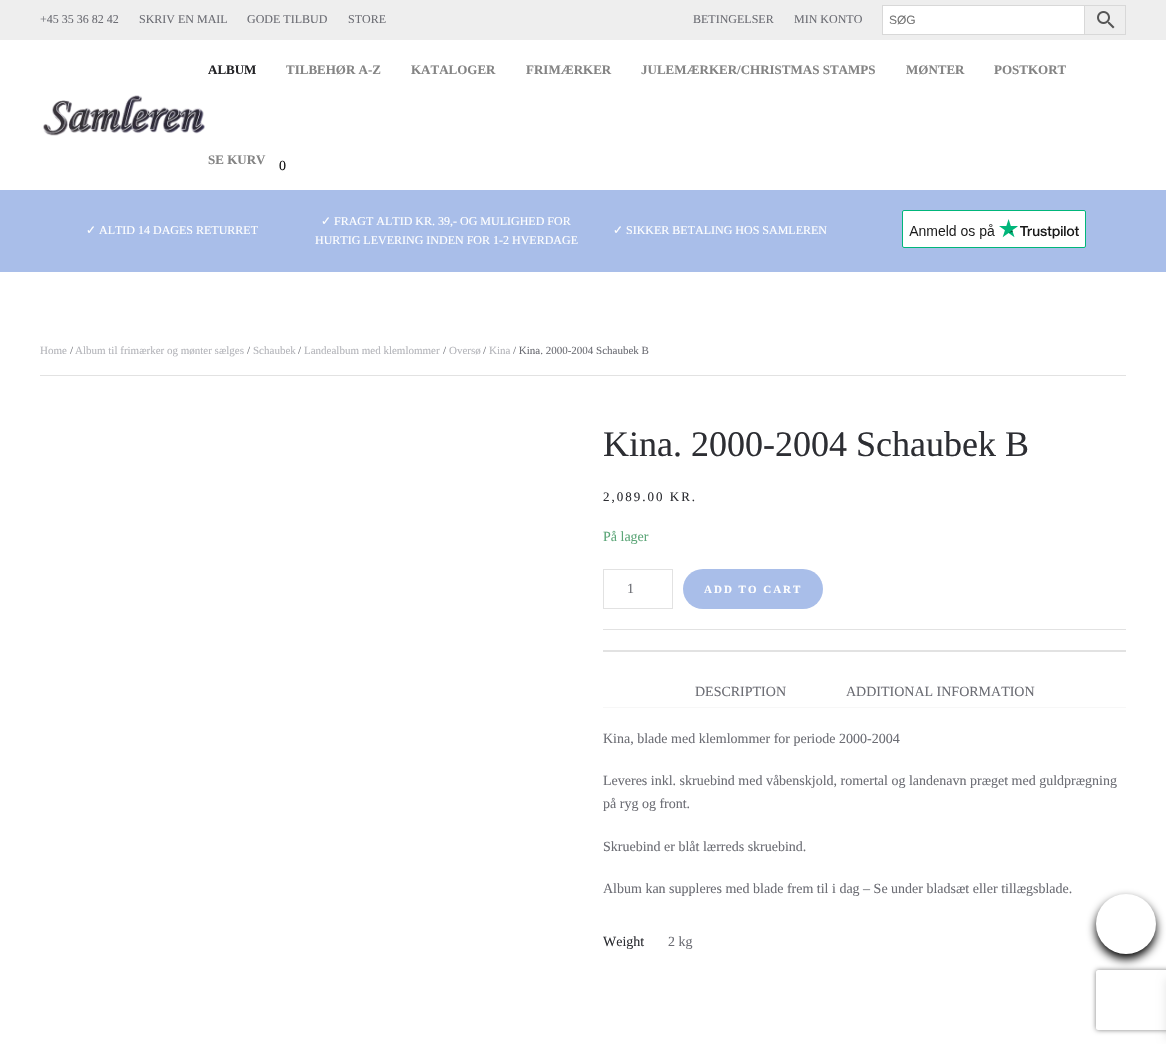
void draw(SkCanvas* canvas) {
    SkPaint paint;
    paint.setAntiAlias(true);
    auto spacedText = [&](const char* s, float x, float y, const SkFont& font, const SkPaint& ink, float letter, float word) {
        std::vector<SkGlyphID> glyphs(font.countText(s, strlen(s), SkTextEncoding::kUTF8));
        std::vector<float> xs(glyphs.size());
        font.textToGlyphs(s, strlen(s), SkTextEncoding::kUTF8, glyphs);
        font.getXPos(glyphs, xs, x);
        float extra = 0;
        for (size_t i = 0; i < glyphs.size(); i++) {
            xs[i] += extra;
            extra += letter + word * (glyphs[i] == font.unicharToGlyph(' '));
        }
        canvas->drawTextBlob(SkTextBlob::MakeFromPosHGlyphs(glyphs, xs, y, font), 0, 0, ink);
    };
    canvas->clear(0xFFFFFFFF);
    paint.setColor(0xFFEEEEEE);
    canvas->drawRect(SkRect::MakeXYWH(0, 0, 1166, 40), paint);
    SkFont font1(fontMgr->matchFamilyStyle("Liberation Serif", SkFontStyle::Normal()), 12);
    font1.setSubpixel(true);
    paint.setColor(0xFF6C6D74);
    canvas->drawString("+45 35 36 82 42", 40, 23, font1, paint);
    canvas->drawString("SKRIV EN MAIL", 139, 23, font1, paint);
    canvas->drawString("GODE TILBUD", 247, 23, font1, paint);
    canvas->drawString("STORE", 348, 23, font1, paint);
    canvas->drawString("BETINGELSER", 693, 23, font1, paint);
    canvas->drawString("MIN KONTO", 794, 23, font1, paint);
    paint.setStyle(SkPaint::kStroke_Style);
    paint.setStrokeWidth(1);
    paint.setColor(0xFFD8D8D8);
    canvas->drawRect(SkRect::MakeXYWH(1084.5f, 5.5f, 41, 29), paint);
    paint.setStyle(SkPaint::kFill_Style);
    paint.setColor(0xFFFFFFFF);
    canvas->drawRect(SkRect::MakeXYWH(882.5f, 5.5f, 202, 29), paint);
    paint.setStyle(SkPaint::kStroke_Style);
    paint.setColor(0xFFD8D8D8);
    canvas->drawRect(SkRect::MakeXYWH(882.5f, 5.5f, 202, 29), paint);
    SkFont font2(fontMgr->matchFamilyStyle("Liberation Sans", SkFontStyle::Normal()), 12);
    font2.setSubpixel(true);
    paint.setStyle(SkPaint::kFill_Style);
    paint.setColor(0xFF757575);
    canvas->drawString("SØG", 889, 24, font2, paint);
    canvas->drawImageRect(SkImages::DeferredFromEncodedData(SkData::MakeFromFileName("img1.png")), SkRect::MakeXYWH(1097, 11, 18, 18), SkSamplingOptions());
    canvas->drawImageRect(SkImages::DeferredFromEncodedData(SkData::MakeFromFileName("img2.png")), SkRect::MakeXYWH(43, 95, 162, 41), SkSamplingOptions());
    SkFont font3(fontMgr->matchFamilyStyle("Liberation Serif", SkFontStyle::Bold()), 13);
    font3.setSubpixel(true);
    paint.setColor(0xFF242427);
    canvas->drawString("ALBUM", 208, 74, font3, paint);
    paint.setColor(0xFF848484);
    canvas->drawString("TILBEHØR A-Z", 286, 74, font3, paint);
    canvas->drawString("KATALOGER", 411, 74, font3, paint);
    canvas->drawString("FRIMÆRKER", 526, 74, font3, paint);
    canvas->drawString("JULEMÆRKER/CHRISTMAS STAMPS", 641, 74, font3, paint);
    canvas->drawString("MØNTER", 906, 74, font3, paint);
    canvas->drawString("POSTKORT", 994, 74, font3, paint);
    canvas->drawString("SE KURV", 208, 164, font3, paint);
    SkFont font4(fontMgr->matchFamilyStyle("Liberation Serif", SkFontStyle::Normal()), 14);
    font4.setSubpixel(true);
    paint.setColor(0xFF121212);
    canvas->drawString("0", 279, 170, font4, paint);
    paint.setColor(0xFFA9BEE9);
    canvas->drawRect(SkRect::MakeXYWH(0, 190, 1166, 82), paint);
    SkFont font5(fontMgr->matchFamilyStyle("DejaVu Sans", SkFontStyle::Normal()), 12);
    font5.setSubpixel(true);
    paint.setColor(0xFFFFFFFF);
    canvas->drawString("✓", 86, 234, font5, paint);
    canvas->drawString("ALTID 14 DAGES RETURRET", 99, 234, font1, paint);
    canvas->drawString("✓", 321, 225, font5, paint);
    canvas->drawString("FRAGT ALTID KR. 39,- OG MULIGHED FOR", 334, 225, font1, paint);
    canvas->drawString("HURTIG LEVERING INDEN FOR 1-2 HVERDAGE", 315, 244, font1, paint);
    canvas->drawString("✓", 613, 234, font5, paint);
    canvas->drawString("SIKKER BETALING HOS SAMLEREN", 626, 234, font1, paint);
    canvas->drawImageRect(SkImages::DeferredFromEncodedData(SkData::MakeFromFileName("img3.png")), SkRect::MakeXYWH(902, 210, 184, 38), SkSamplingOptions());
    paint.setColor(0xFFE2E2E2);
    canvas->drawRect(SkRect::MakeXYWH(40, 375, 1086, 1), paint);
    SkFont font6(fontMgr->matchFamilyStyle("Liberation Serif", SkFontStyle::Normal()), 11);
    font6.setSubpixel(true);
    paint.setColor(0xFFB4B5BA);
    canvas->drawString("Home", 40, 354, font6, paint);
    paint.setColor(0xFF6C6D74);
    canvas->drawString("/", 70, 354, font6, paint);
    paint.setColor(0xFFB4B5BA);
    canvas->drawString("Album til frimærker og mønter sælges", 75, 354, font6, paint);
    paint.setColor(0xFF6C6D74);
    canvas->drawString("/", 247, 354, font6, paint);
    paint.setColor(0xFFB4B5BA);
    canvas->drawString("Schaubek", 253, 354, font6, paint);
    paint.setColor(0xFF6C6D74);
    canvas->drawString("/", 298, 354, font6, paint);
    paint.setColor(0xFFB4B5BA);
    canvas->drawString("Landealbum med klemlommer", 304, 354, font6, paint);
    paint.setColor(0xFF6C6D74);
    canvas->drawString("/", 443, 354, font6, paint);
    paint.setColor(0xFFB4B5BA);
    canvas->drawString("Oversø", 449, 354, font6, paint);
    paint.setColor(0xFF6C6D74);
    canvas->drawString("/", 483, 354, font6, paint);
    paint.setColor(0xFFB4B5BA);
    canvas->drawString("Kina", 489, 354, font6, paint);
    paint.setColor(0xFF6C6D74);
    canvas->drawString("/ Kina. 2000-2004 Schaubek B", 513, 354, font6, paint);
    SkFont font7(fontMgr->matchFamilyStyle("Liberation Serif", SkFontStyle::Normal()), 36);
    font7.setSubpixel(true);
    paint.setColor(0xFF2D2E33);
    canvas->drawString("Kina. 2000-2004 Schaubek B", 603, 456, font7, paint);
    SkFont font8(fontMgr->matchFamilyStyle("Liberation Serif", SkFontStyle::Normal()), 13);
    font8.setSubpixel(true);
    spacedText("2,089.00 KR.", 603, 501, font8, paint, 2, 0);
    paint.setColor(0xFF5CA678);
    canvas->drawString("På lager", 603, 541, font4, paint);
    paint.setStyle(SkPaint::kStroke_Style);
    paint.setColor(0xFFE2E2E2);
    canvas->drawRect(SkRect::MakeXYWH(603.5f, 569.5f, 69, 39), paint);
    paint.setStyle(SkPaint::kFill_Style);
    paint.setColor(0xFF6C6D74);
    canvas->drawString("1", 627, 593, font4, paint);
    paint.setColor(0xFFA9BEE9);
    canvas->drawRoundRect(SkRect::MakeXYWH(683, 569, 140, 40), 20, 20, paint);
    SkFont font9(fontMgr->matchFamilyStyle("Liberation Serif", SkFontStyle::Bold()), 11);
    font9.setSubpixel(true);
    paint.setColor(0xFFFFFFFF);
    spacedText("ADD TO CART", 704, 593, font9, paint, 2, 0);
    paint.setColor(0xFFE2E2E2);
    canvas->drawRect(SkRect::MakeXYWH(603, 629, 523, 1), paint);
    canvas->drawRect(SkRect::MakeXYWH(603, 650, 523, 2), paint);
    paint.setColor(0xFF6C6D74);
    canvas->drawString("DESCRIPTION", 695, 696, font4, paint);
    canvas->drawString("ADDITIONAL INFORMATION", 846, 696, font4, paint);
    paint.setColor(0xFFF7F7F7);
    canvas->drawRect(SkRect::MakeXYWH(603, 707, 523, 1), paint);
    paint.setColor(0xFF6C6D74);
    canvas->drawString("Kina, blade med klemlommer for periode 2000-2004", 603, 743, font4, paint);
    canvas->drawString("Leveres inkl. skruebind med våbenskjold, romertal og landenavn præget med guldprægning", 603, 785, font4, paint);
    canvas->drawString("på ryg og front.", 603, 808, font4, paint);
    canvas->drawString("Skruebind er blåt lærreds skruebind.", 603, 851, font4, paint);
    canvas->drawString("Album kan suppleres med blade frem til i dag – Se under bladsæt eller tillægsblade.", 603, 893, font4, paint);
    paint.setColor(0xFF2D2E33);
    canvas->drawString("Weight", 603, 946, font4, paint);
    paint.setColor(0xFF6C6D74);
    canvas->drawString("2 kg", 668, 946, font4, paint);
    paint.setColor(0xFF000000);
    paint.setMaskFilter(SkMaskFilter::MakeBlur(kNormal_SkBlurStyle, 5));
    canvas->drawRoundRect(SkRect::MakeXYWH(1096, 899, 60, 60), 30, 30, paint);
    paint.setMaskFilter(nullptr);
    paint.setColor(0xFFFFFFFF);
    canvas->drawCircle(1126, 924, 30, paint);
    paint.setColor(0x1A000000);
    paint.setMaskFilter(SkMaskFilter::MakeBlur(kNormal_SkBlurStyle, 5));
    canvas->drawRect(SkRect::MakeXYWH(1166, 979, 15, 60), paint);
    paint.setMaskFilter(nullptr);
    canvas->save();
    canvas->clipPath(SkPathBuilder(SkPathFillType::kEvenOdd).moveTo(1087, 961).lineTo(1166, 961).lineTo(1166, 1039).lineTo(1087, 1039).close().moveTo(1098, 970).lineTo(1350, 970).cubicTo(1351, 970, 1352, 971, 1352, 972).lineTo(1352, 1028).cubicTo(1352, 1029, 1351, 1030, 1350, 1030).lineTo(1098, 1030).cubicTo(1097, 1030, 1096, 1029, 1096, 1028).lineTo(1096, 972).cubicTo(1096, 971, 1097, 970, 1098, 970).close().detach(), true);
    paint.setColor(0xFF808080);
    paint.setMaskFilter(SkMaskFilter::MakeBlur(kNormal_SkBlurStyle, 2.5f));
    canvas->drawRoundRect(SkRect::MakeXYWH(1096, 970, 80, 60), 2, 2, paint);
    paint.setMaskFilter(nullptr);
    canvas->restore();
}
